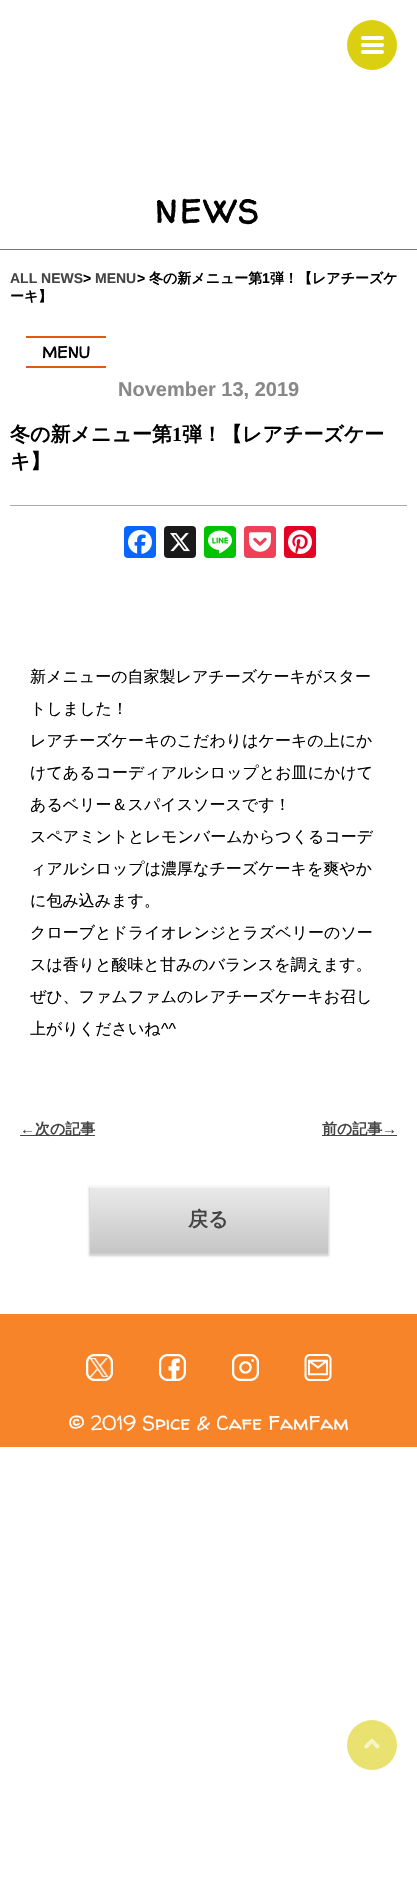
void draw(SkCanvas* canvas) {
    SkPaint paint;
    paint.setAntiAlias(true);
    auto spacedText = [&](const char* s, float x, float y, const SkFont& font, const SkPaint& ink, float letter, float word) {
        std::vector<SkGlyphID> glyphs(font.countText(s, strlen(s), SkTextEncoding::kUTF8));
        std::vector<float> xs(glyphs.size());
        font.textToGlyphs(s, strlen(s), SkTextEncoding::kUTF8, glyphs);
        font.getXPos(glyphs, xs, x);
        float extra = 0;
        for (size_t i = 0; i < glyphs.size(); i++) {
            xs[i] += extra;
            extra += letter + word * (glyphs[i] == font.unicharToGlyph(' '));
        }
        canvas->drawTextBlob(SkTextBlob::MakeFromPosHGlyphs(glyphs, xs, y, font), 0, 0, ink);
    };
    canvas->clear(0xFFFFFFFF);
    paint.setColor(0xFFDACF10);
    canvas->drawCircle(372, 45, 25, paint);
    paint.setColor(0xFFFFFFFF);
    canvas->drawRoundRect(SkRect::MakeXYWH(361, 36, 23, 4), 2, 2, paint);
    canvas->drawRoundRect(SkRect::MakeXYWH(361, 43, 23, 4), 2, 2, paint);
    canvas->drawRoundRect(SkRect::MakeXYWH(361, 50, 23, 4), 2, 2, paint);
    SkFont font1(fontMgr->matchFamilyStyle("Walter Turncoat", SkFontStyle::Bold()), 32);
    font1.setSubpixel(true);
    paint.setColor(0xFF000000);
    spacedText("NEWS", 155, 223, font1, paint, 3, 0);
    paint.setColor(0xFF777777);
    canvas->drawRect(SkRect::MakeXYWH(0, 249, 417, 1), paint);
    SkFont font2(fontMgr->matchFamilyStyle("Liberation Sans", SkFontStyle::Bold()), 14);
    font2.setSubpixel(true);
    paint.setColor(0xFF444444);
    canvas->drawString("ALL NEWS", 10, 283, font2, paint);
    paint.setColor(0xFF000000);
    canvas->drawString(">", 83, 283, font2, paint);
    paint.setColor(0xFF444444);
    canvas->drawString("MENU", 95, 283, font2, paint);
    paint.setColor(0xFF000000);
    canvas->drawString(">", 137, 283, font2, paint);
    SkFont font3(fontMgr->matchFamilyStyle("WenQuanYi Zen Hei", SkFontStyle::Bold()), 14);
    font3.setSubpixel(true);
    canvas->drawString("冬の新メニュー第", 149, 283, font3, paint);
    canvas->drawString("1", 262, 283, font2, paint);
    canvas->drawString("弾！【レアチーズケ", 270, 283, font3, paint);
    canvas->drawString("ーキ】", 10, 301, font3, paint);
    paint.setColor(0xFFE1590E);
    canvas->drawRect(SkRect::MakeXYWH(26, 336, 80, 2), paint);
    canvas->drawRect(SkRect::MakeXYWH(26, 366, 80, 2), paint);
    SkFont font4(fontMgr->matchFamilyStyle("Walter Turncoat", SkFontStyle::Bold()), 16);
    font4.setSubpixel(true);
    paint.setColor(0xFF000000);
    canvas->drawString("MENU", 42, 358, font4, paint);
    SkFont font5(fontMgr->matchFamilyStyle("Liberation Sans", SkFontStyle::Bold()), 20);
    font5.setSubpixel(true);
    paint.setColor(0xFF888888);
    canvas->drawString("November 13, 2019", 118, 396, font5, paint);
    paint.setColor(0xFFAAAAAA);
    canvas->drawRect(SkRect::MakeXYWH(10, 505, 397, 1), paint);
    SkFont font6(fontMgr->matchFamilyStyle("WenQuanYi Zen Hei", SkFontStyle::Bold()), 20);
    font6.setSubpixel(true);
    paint.setColor(0xFF000000);
    canvas->drawString("冬の新メニュー第", 10, 441, font6, paint);
    SkFont font7(fontMgr->matchFamilyStyle("Liberation Serif", SkFontStyle::Bold()), 20);
    font7.setSubpixel(true);
    canvas->drawString("1", 172, 441, font7, paint);
    canvas->drawString("弾！【レアチーズケー", 182, 441, font6, paint);
    canvas->drawString("キ】", 10, 468, font6, paint);
    paint.setColor(0xFF0866FF);
    canvas->drawRoundRect(SkRect::MakeXYWH(124, 526, 32, 32), 4, 4, paint);
    canvas->drawImageRect(SkImages::DeferredFromEncodedData(SkData::MakeFromFileName("img1.png")), SkRect::MakeXYWH(128, 530, 24, 24), SkSamplingOptions());
    paint.setColor(0xFF1A1A1A);
    canvas->drawRoundRect(SkRect::MakeXYWH(164, 526, 32, 32), 4, 4, paint);
    canvas->drawImageRect(SkImages::DeferredFromEncodedData(SkData::MakeFromFileName("img2.png")), SkRect::MakeXYWH(170, 533, 20, 19), SkSamplingOptions());
    paint.setColor(0xFF00C300);
    canvas->drawRoundRect(SkRect::MakeXYWH(204, 526, 32, 32), 4, 4, paint);
    canvas->drawImageRect(SkImages::DeferredFromEncodedData(SkData::MakeFromFileName("img3.png")), SkRect::MakeXYWH(208, 530, 24, 24), SkSamplingOptions());
    paint.setColor(0xFFEE4056);
    canvas->drawRoundRect(SkRect::MakeXYWH(244, 526, 32, 32), 4, 4, paint);
    canvas->drawImageRect(SkImages::DeferredFromEncodedData(SkData::MakeFromFileName("img4.png")), SkRect::MakeXYWH(249, 532, 22, 20), SkSamplingOptions());
    paint.setColor(0xFFE60023);
    canvas->drawRoundRect(SkRect::MakeXYWH(284, 526, 32, 32), 4, 4, paint);
    canvas->drawImageRect(SkImages::DeferredFromEncodedData(SkData::MakeFromFileName("img5.png")), SkRect::MakeXYWH(288, 530, 24, 24), SkSamplingOptions());
    SkFont font8(fontMgr->matchFamilyStyle("WenQuanYi Zen Hei", SkFontStyle(500, SkFontStyle::kNormal_Width, SkFontStyle::kUpright_Slant)), 16);
    font8.setSubpixel(true);
    paint.setColor(0xFF000000);
    canvas->drawString("新メニューの自家製レアチーズケーキがスター", 30, 682, font8, paint);
    canvas->drawString("トしました！", 30, 714, font8, paint);
    canvas->drawString("レアチーズケーキのこだわりはケーキの上にか", 30, 746, font8, paint);
    canvas->drawString("けてあるコーディアルシロップとお皿にかけて", 30, 778, font8, paint);
    canvas->drawString("あるベリー＆スパイスソースです！", 30, 810, font8, paint);
    canvas->drawString("スペアミントとレモンバームからつくるコーデ", 30, 842, font8, paint);
    canvas->drawString("ィアルシロップは濃厚なチーズケーキを爽やか", 30, 874, font8, paint);
    canvas->drawString("に包み込みます。", 30, 906, font8, paint);
    canvas->drawString("クローブとドライオレンジとラズベリーのソー", 30, 938, font8, paint);
    canvas->drawString("スは香りと酸味と甘みのバランスを調えます。", 30, 970, font8, paint);
    canvas->drawString("ぜひ、ファムファムのレアチーズケーキお召し", 30, 1002, font8, paint);
    canvas->drawString("上がりくださいね", 30, 1034, font8, paint);
    SkFont font9(fontMgr->matchFamilyStyle("Liberation Sans", SkFontStyle::Normal()), 16);
    font9.setSubpixel(true);
    canvas->drawString("^^", 161, 1034, font9, paint);
    SkFont font10(fontMgr->matchFamilyStyle("Liberation Sans", SkFontStyle::Bold()), 15);
    font10.setSubpixel(true);
    paint.setColor(0xFF444444);
    canvas->drawString("←", 20, 1134, font10, paint);
    canvas->drawRect(SkRect::MakeXYWH(20, 1135, 75, 1), paint);
    SkFont font11(fontMgr->matchFamilyStyle("WenQuanYi Zen Hei", SkFontStyle::Bold()), 15);
    font11.setSubpixel(true);
    canvas->drawString("次の記事", 35, 1134, font11, paint);
    canvas->drawRect(SkRect::MakeXYWH(322, 1135, 75, 1), paint);
    canvas->drawString("前の記事", 322, 1134, font11, paint);
    canvas->drawString("→", 382, 1134, font10, paint);
    paint.setColor(0x30000000);
    paint.setMaskFilter(SkMaskFilter::MakeBlur(kNormal_SkBlurStyle, 1));
    canvas->drawRect(SkRect::MakeXYWH(89, 1187, 240, 69), paint);
    paint.setMaskFilter(nullptr);
    {
        const SkColor colors[] = {0xFFEAEAEA, 0xFFC6C6C6};
        const float stops[] = {0, 1};
        const SkPoint ends[] = {{209, 1186}, {209, 1253}};
        paint.setShader(SkGradientShader::MakeLinear(ends, colors, stops, 2, SkTileMode::kClamp));
        paint.setAlpha(255);
    }
    canvas->drawRect(SkRect::MakeXYWH(90, 1188, 238, 65), paint);
    paint.setShader(nullptr);
    paint.setColor(0xFFF4F4F4);
    canvas->drawRect(SkRect::MakeXYWH(90, 1186, 238, 2), paint);
    paint.setColor(0xFF444444);
    canvas->drawString("戻る", 188, 1226, font6, paint);
    paint.setColor(0xFFF78428);
    canvas->drawRect(SkRect::MakeXYWH(0, 1314, 417, 133), paint);
    canvas->drawImageRect(SkImages::DeferredFromEncodedData(SkData::MakeFromFileName("img6.png")), SkRect::MakeXYWH(86, 1354, 27, 27), SkSamplingOptions());
    canvas->drawImageRect(SkImages::DeferredFromEncodedData(SkData::MakeFromFileName("img7.png")), SkRect::MakeXYWH(159, 1354, 27, 27), SkSamplingOptions());
    canvas->drawImageRect(SkImages::DeferredFromEncodedData(SkData::MakeFromFileName("img8.png")), SkRect::MakeXYWH(232, 1354, 27, 27), SkSamplingOptions());
    canvas->drawImageRect(SkImages::DeferredFromEncodedData(SkData::MakeFromFileName("img9.png")), SkRect::MakeXYWH(304, 1354, 28, 27), SkSamplingOptions());
    SkFont font12(fontMgr->matchFamilyStyle("Walter Turncoat", SkFontStyle::Normal()), 20);
    font12.setSubpixel(true);
    paint.setColor(0xFFFFFFFF);
    canvas->drawString("© 2019 Spice & Cafe FamFam", 69, 1430, font12, paint);
    paint.setColor(0xFFE9E270);
    canvas->drawCircle(372, 1745, 25, paint);
    canvas->drawImageRect(SkImages::DeferredFromEncodedData(SkData::MakeFromFileName("img10.png")), SkRect::MakeXYWH(364, 1738, 16, 11), SkSamplingOptions());
}
